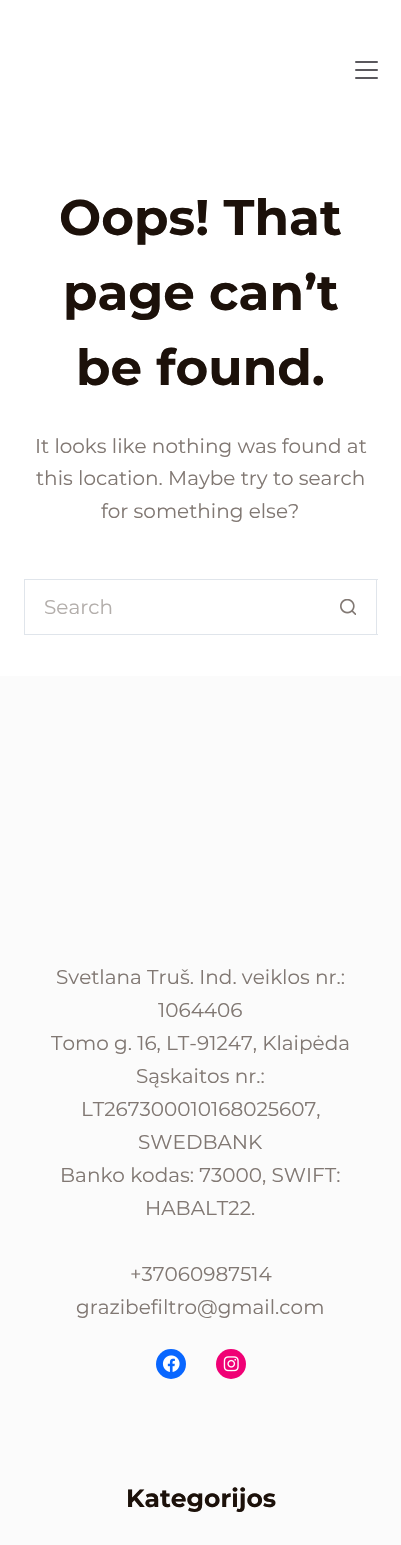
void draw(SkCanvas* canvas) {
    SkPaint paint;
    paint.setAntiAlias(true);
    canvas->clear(0xFFFFFFFF);
    paint.setColor(0xFF5A585D);
    canvas->drawRoundRect(SkRect::MakeXYWH(355, 61, 23, 2), 1, 1, paint);
    canvas->drawRoundRect(SkRect::MakeXYWH(355, 69, 23, 2), 1, 1, paint);
    canvas->drawRoundRect(SkRect::MakeXYWH(355, 77, 23, 2), 1, 1, paint);
    SkFont font1(fontMgr->matchFamilyStyle("Montserrat", SkFontStyle::Bold()), 50);
    font1.setSubpixel(true);
    paint.setColor(0xFF1C110A);
    canvas->drawString("Oops! That", 59, 235, font1, paint);
    canvas->drawString("page can’t", 63, 310, font1, paint);
    canvas->drawString("be found.", 76, 385, font1, paint);
    SkFont font2(fontMgr->matchFamilyStyle("Montserrat", SkFontStyle::Normal()), 20);
    font2.setSubpixel(true);
    paint.setColor(0xFF817873);
    canvas->drawString("It looks like nothing was found at", 35, 453, font2, paint);
    canvas->drawString("this location. Maybe try to search", 36, 485, font2, paint);
    canvas->drawString("for something else?", 101, 518, font2, paint);
    paint.setColor(0xFFE0E5EB);
    canvas->drawRect(SkRect::MakeXYWH(24, 579, 354, 1), paint);
    canvas->drawRect(SkRect::MakeXYWH(24, 634, 297, 1), paint);
    canvas->drawRect(SkRect::MakeXYWH(24, 579, 1, 56), paint);
    paint.setColor(0xFFB3AEAB);
    canvas->drawString("Search", 44, 614, font2, paint);
    paint.setColor(0xFFE0E5EB);
    canvas->drawRect(SkRect::MakeXYWH(376, 579, 1, 56), paint);
    canvas->drawRect(SkRect::MakeXYWH(321, 634, 57, 1), paint);
    canvas->drawImageRect(SkImages::DeferredFromEncodedData(SkData::MakeFromFileName("img1.png")), SkRect::MakeXYWH(340, 599, 16, 16), SkSamplingOptions());
    paint.setColor(0xFFFBFBFB);
    canvas->drawRect(SkRect::MakeXYWH(0, 676, 401, 869), paint);
    paint.setColor(0xFF817873);
    canvas->drawString("Svetlana Truš. Ind. veiklos nr.:", 56, 984, font2, paint);
    canvas->drawString("1064406", 158, 1017, font2, paint);
    canvas->drawString("Tomo g. 16, LT-91247, Klaipėda", 51, 1050, font2, paint);
    canvas->drawString("Sąskaitos nr.:", 136, 1083, font2, paint);
    canvas->drawString("LT267300010168025607,", 81, 1116, font2, paint);
    canvas->drawString("SWEDBANK", 138, 1149, font2, paint);
    canvas->drawString("Banko kodas: 73000, SWIFT:", 60, 1182, font2, paint);
    canvas->drawString("HABALT22.", 145, 1215, font2, paint);
    canvas->drawString("+37060987514", 130, 1281, font2, paint);
    canvas->drawString("grazibefiltro@gmail.com", 76, 1314, font2, paint);
    paint.setColor(0xFF0866FF);
    canvas->drawCircle(171, 1364, 15, paint);
    canvas->drawImageRect(SkImages::DeferredFromEncodedData(SkData::MakeFromFileName("img2.png")), SkRect::MakeXYWH(162, 1355, 18, 17), SkSamplingOptions());
    paint.setColor(0xFFF00075);
    canvas->drawCircle(231, 1364, 15, paint);
    canvas->drawImageRect(SkImages::DeferredFromEncodedData(SkData::MakeFromFileName("img3.png")), SkRect::MakeXYWH(223, 1356, 16, 16), SkSamplingOptions());
    SkFont font3(fontMgr->matchFamilyStyle("Montserrat", SkFontStyle::Bold()), 25);
    font3.setSubpixel(true);
    paint.setColor(0xFF1C110A);
    canvas->drawString("Kategorijos", 126, 1507, font3, paint);
}
